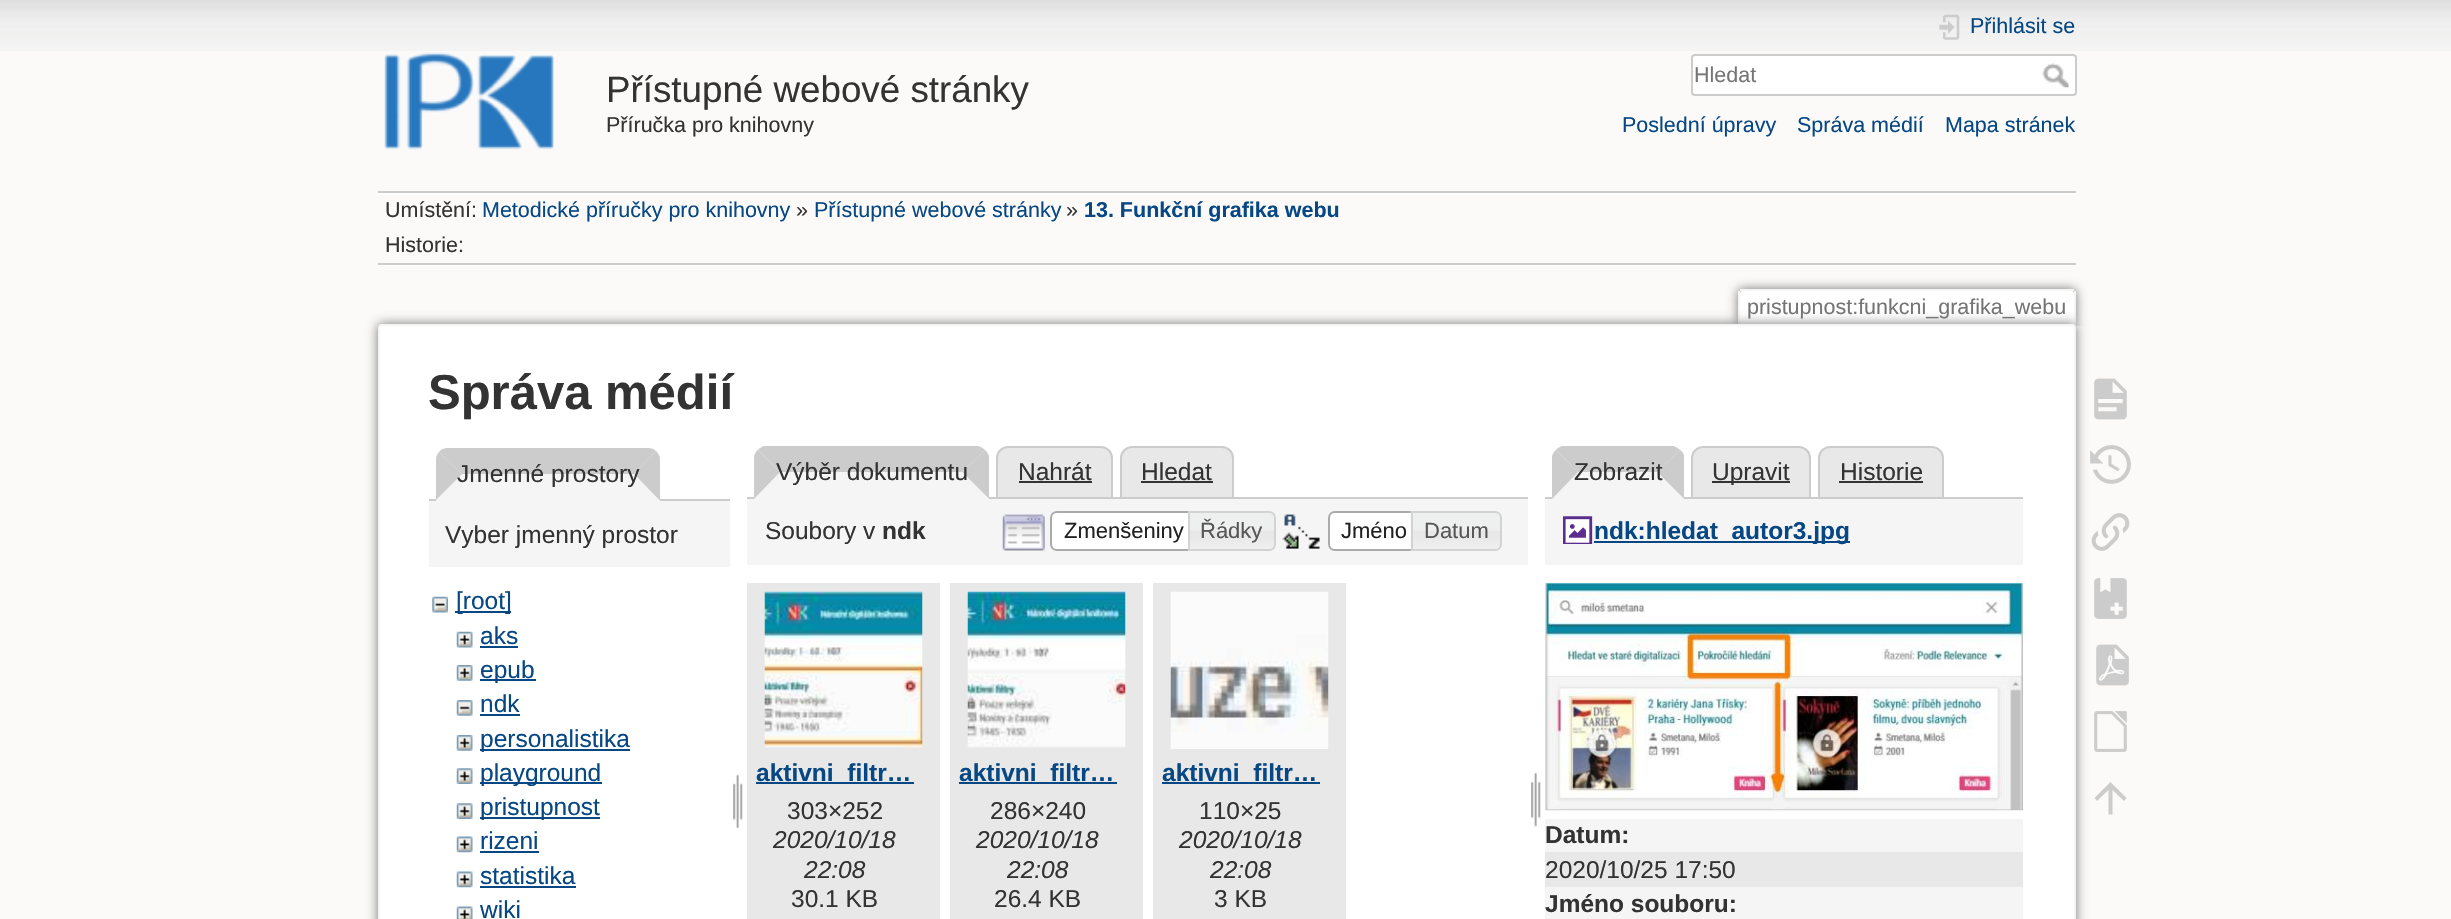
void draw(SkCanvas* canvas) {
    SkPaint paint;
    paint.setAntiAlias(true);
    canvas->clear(0xFFFBFAF9);
    canvas->drawImageRect(SkImages::DeferredFromEncodedData(SkData::MakeFromFileName("img1.png")), SkRect::MakeXYWH(0, 0, 2451, 51), SkSamplingOptions());
    canvas->drawImageRect(SkImages::DeferredFromEncodedData(SkData::MakeFromFileName("img2.png")), SkRect::MakeXYWH(383, 52, 172, 98), SkSamplingOptions());
    SkFont font1(fontMgr->matchFamilyStyle("Liberation Sans", SkFontStyle::Normal()), 36.75f);
    font1.setSubpixel(true);
    paint.setColor(0xFF333333);
    canvas->drawString("Přístupné webové stránky", 606, 102, font1, paint);
    SkFont font2(fontMgr->matchFamilyStyle("Liberation Sans", SkFontStyle::Normal()), 21.5f);
    font2.setSubpixel(true);
    canvas->drawString("Příručka pro knihovny", 606, 132, font2, paint);
    canvas->drawImageRect(SkImages::DeferredFromEncodedData(SkData::MakeFromFileName("img3.png")), SkRect::MakeXYWH(1939, 14, 21, 26), SkSamplingOptions());
    paint.setColor(0xFF064784);
    canvas->drawString("Přihlásit se", 1970, 33, font2, paint);
    paint.setColor(0xFFFFFFFF);
    canvas->drawRoundRect(SkRect::MakeXYWH(1692, 55, 384, 40), 3, 3, paint);
    paint.setStyle(SkPaint::kStroke_Style);
    paint.setStrokeWidth(2);
    paint.setColor(0xFFCCCCCC);
    canvas->drawRoundRect(SkRect::MakeXYWH(1692, 55, 384, 40), 3, 3, paint);
    paint.setStyle(SkPaint::kFill_Style);
    paint.setColor(0xFF757575);
    canvas->drawString("Hledat", 1694, 82, font2, paint);
    canvas->drawImageRect(SkImages::DeferredFromEncodedData(SkData::MakeFromFileName("img4.png")), SkRect::MakeXYWH(2042, 63, 27, 25), SkSamplingOptions());
    paint.setColor(0xFF064784);
    canvas->drawString("Poslední úpravy", 1622, 132, font2, paint);
    canvas->drawString("Správa médií", 1797, 132, font2, paint);
    canvas->drawString("Mapa stránek", 1945, 132, font2, paint);
    paint.setColor(0xFFCCCCCC);
    canvas->drawRect(SkRect::MakeXYWH(378, 191, 1698, 2), paint);
    paint.setColor(0xFFFFFFFF);
    canvas->drawRect(SkRect::MakeXYWH(378, 265, 1698, 1), paint);
    canvas->drawRect(SkRect::MakeXYWH(378, 193, 1698, 2), paint);
    paint.setColor(0xFF333333);
    canvas->drawString("Umístění:", 385, 217, font2, paint);
    paint.setColor(0xFF064784);
    canvas->drawString("Metodické příručky pro knihovny", 482, 217, font2, paint);
    paint.setColor(0xFF333333);
    canvas->drawString("»", 796, 217, font2, paint);
    paint.setColor(0xFF064784);
    canvas->drawString("Přístupné webové stránky", 814, 217, font2, paint);
    paint.setColor(0xFF333333);
    canvas->drawString("»", 1066, 217, font2, paint);
    SkFont font3(fontMgr->matchFamilyStyle("Liberation Sans", SkFontStyle::Bold()), 21.5f);
    font3.setSubpixel(true);
    paint.setColor(0xFF064784);
    canvas->drawString("13. Funkční grafika webu", 1084, 217, font3, paint);
    paint.setColor(0xFFCCCCCC);
    canvas->drawRect(SkRect::MakeXYWH(378, 263, 1698, 2), paint);
    paint.setColor(0xFF333333);
    canvas->drawString("Historie:", 385, 252, font2, paint);
    canvas->save();
    canvas->clipRect(SkRect::MakeXYWH(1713, 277, 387, 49));
    paint.setColor(0xFF757575);
    paint.setMaskFilter(SkMaskFilter::MakeBlur(kNormal_SkBlurStyle, 5.5f));
    canvas->drawRoundRect(SkRect::MakeXYWH(1738, 289, 338, 37), 4, 4, paint);
    paint.setMaskFilter(nullptr);
    canvas->restore();
    paint.setColor(0xFFFFFFFF);
    canvas->drawPath(SkPathBuilder().moveTo(1742, 291).lineTo(2072, 291).cubicTo(2073, 291, 2074, 292, 2074, 293).lineTo(2074, 326).lineTo(1740, 326).lineTo(1740, 293).cubicTo(1740, 292, 1741, 291, 1742, 291).close().detach(), paint);
    paint.setColor(0xFFF5F5F5);
    canvas->drawRect(SkRect::MakeXYWH(1740, 289, 334, 2), paint);
    canvas->drawRect(SkRect::MakeXYWH(2074, 291, 2, 35), paint);
    canvas->drawRect(SkRect::MakeXYWH(1738, 291, 2, 35), paint);
    paint.setColor(0xFF757575);
    canvas->drawString("pristupnost:funkcni_grafika_webu", 1747, 314, font2, paint);
    paint.setMaskFilter(SkMaskFilter::MakeBlur(kNormal_SkBlurStyle, 6));
    canvas->drawRoundRect(SkRect::MakeXYWH(378, 324, 1698, 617), 4, 4, paint);
    paint.setMaskFilter(nullptr);
    paint.setColor(0xFFFFFFFF);
    canvas->drawRoundRect(SkRect::MakeXYWH(379, 325, 1696, 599), 3, 3, paint);
    paint.setStyle(SkPaint::kStroke_Style);
    paint.setColor(0xFFF5F5F5);
    canvas->drawRoundRect(SkRect::MakeXYWH(379, 325, 1696, 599), 3, 3, paint);
    SkFont font4(fontMgr->matchFamilyStyle("Liberation Sans", SkFontStyle::Bold()), 49);
    font4.setSubpixel(true);
    paint.setStyle(SkPaint::kFill_Style);
    paint.setColor(0xFF333333);
    canvas->drawString("Správa médií", 428, 409, font4, paint);
    paint.setColor(0xFFCCCCCC);
    canvas->drawRect(SkRect::MakeXYWH(429, 499, 301, 2), paint);
    paint.setColor(0xFFF5F5F5);
    canvas->drawPath(SkPathBuilder().moveTo(448, 448).lineTo(648, 448).cubicTo(654.5f, 448, 660, 453.5f, 660, 460).lineTo(660, 501).lineTo(436, 501).lineTo(436, 460).cubicTo(436, 453.5f, 441.5f, 448, 448, 448).close().detach(), paint);
    paint.setColor(0xFFCCCCCC);
    canvas->drawPath(SkPathBuilder().moveTo(448, 448).lineTo(648, 448).cubicTo(651, 448, 654, 449, 656, 451).lineTo(634, 474).lineTo(462, 474).lineTo(439, 452).cubicTo(441, 449, 444, 448, 448, 448).close().detach(), paint);
    canvas->drawPath(SkPathBuilder().moveTo(656, 451).lineTo(634, 474).lineTo(659, 500).lineTo(660, 500).lineTo(660, 458).cubicTo(659, 455, 658, 453, 656, 451).close().detach(), paint);
    paint.setColor(0xFFF5F5F5);
    canvas->drawPath(SkPathBuilder().moveTo(659, 500).lineTo(634, 474).lineTo(462, 474).lineTo(436, 500).close().detach(), paint);
    paint.setColor(0xFFCCCCCC);
    canvas->drawPath(SkPathBuilder().moveTo(439, 452).cubicTo(437, 454, 436, 457, 436, 460).lineTo(436, 500).lineTo(462, 474).close().detach(), paint);
    SkFont font5(fontMgr->matchFamilyStyle("Liberation Sans", SkFontStyle::Normal()), 24.5f);
    font5.setSubpixel(true);
    paint.setColor(0xFF333333);
    canvas->drawString("Jmenné prostory", 457, 482, font5, paint);
    paint.setColor(0xFFF5F5F5);
    canvas->drawRect(SkRect::MakeXYWH(429, 501, 301, 66), paint);
    paint.setColor(0xFF333333);
    canvas->drawString("Vyber jmenný prostor", 445, 543, font5, paint);
    canvas->drawImageRect(SkImages::DeferredFromEncodedData(SkData::MakeFromFileName("img5.png")), SkRect::MakeXYWH(432, 596, 16, 17), SkSamplingOptions());
    paint.setColor(0xFF064784);
    canvas->drawRect(SkRect::MakeXYWH(455, 611, 56, 2), paint);
    canvas->drawString("[root]", 456, 609, font5, paint);
    canvas->drawImageRect(SkImages::DeferredFromEncodedData(SkData::MakeFromFileName("img6.png")), SkRect::MakeXYWH(456, 631, 17, 17), SkSamplingOptions());
    canvas->drawString("aks", 480, 644, font5, paint);
    canvas->drawRect(SkRect::MakeXYWH(480, 646, 38, 2), paint);
    canvas->drawImageRect(SkImages::DeferredFromEncodedData(SkData::MakeFromFileName("img7.png")), SkRect::MakeXYWH(456, 665, 17, 16), SkSamplingOptions());
    canvas->drawRect(SkRect::MakeXYWH(480, 679, 56, 2), paint);
    canvas->drawString("epub", 480, 678, font5, paint);
    canvas->drawImageRect(SkImages::DeferredFromEncodedData(SkData::MakeFromFileName("img8.png")), SkRect::MakeXYWH(456, 700, 17, 16), SkSamplingOptions());
    canvas->drawString("ndk", 480, 712, font5, paint);
    canvas->drawRect(SkRect::MakeXYWH(480, 714, 40, 2), paint);
    canvas->drawImageRect(SkImages::DeferredFromEncodedData(SkData::MakeFromFileName("img7.png")), SkRect::MakeXYWH(456, 735, 17, 16), SkSamplingOptions());
    canvas->drawRect(SkRect::MakeXYWH(480, 749, 150, 2), paint);
    canvas->drawString("personalistika", 480, 747, font5, paint);
    canvas->drawImageRect(SkImages::DeferredFromEncodedData(SkData::MakeFromFileName("img9.png")), SkRect::MakeXYWH(456, 768, 17, 16), SkSamplingOptions());
    canvas->drawRect(SkRect::MakeXYWH(480, 782, 122, 2), paint);
    canvas->drawString("playground", 480, 781, font5, paint);
    canvas->drawImageRect(SkImages::DeferredFromEncodedData(SkData::MakeFromFileName("img9.png")), SkRect::MakeXYWH(456, 803, 17, 16), SkSamplingOptions());
    canvas->drawRect(SkRect::MakeXYWH(480, 817, 120, 2), paint);
    canvas->drawString("pristupnost", 480, 815, font5, paint);
    canvas->drawImageRect(SkImages::DeferredFromEncodedData(SkData::MakeFromFileName("img10.png")), SkRect::MakeXYWH(456, 836, 17, 17), SkSamplingOptions());
    canvas->drawString("rizeni", 480, 849, font5, paint);
    canvas->drawRect(SkRect::MakeXYWH(480, 851, 59, 2), paint);
    canvas->drawImageRect(SkImages::DeferredFromEncodedData(SkData::MakeFromFileName("img10.png")), SkRect::MakeXYWH(456, 871, 17, 17), SkSamplingOptions());
    canvas->drawString("statistika", 480, 884, font5, paint);
    canvas->drawRect(SkRect::MakeXYWH(480, 886, 96, 2), paint);
    canvas->drawImageRect(SkImages::DeferredFromEncodedData(SkData::MakeFromFileName("img11.png")), SkRect::MakeXYWH(456, 906, 17, 13), SkSamplingOptions());
    canvas->drawString("wiki", 480, 918, font5, paint);
    canvas->drawImageRect(SkImages::DeferredFromEncodedData(SkData::MakeFromFileName("img12.png")), SkRect::MakeXYWH(733, 773, 10, 56), SkSamplingOptions());
    paint.setColor(0xFFE8E8E8);
    canvas->drawPath(SkPathBuilder().moveTo(1008, 447).lineTo(1101, 447).cubicTo(1107, 447, 1112, 452, 1112, 458).lineTo(1112, 498).lineTo(997, 498).lineTo(997, 458).cubicTo(997, 452, 1002, 447, 1008, 447).close().detach(), paint);
    paint.setStyle(SkPaint::kStroke_Style);
    paint.setColor(0xFFCCCCCC);
    canvas->drawPath(SkPathBuilder().moveTo(1008, 447).lineTo(1101, 447).cubicTo(1107, 447, 1112, 452, 1112, 458).lineTo(1112, 498).lineTo(997, 498).lineTo(997, 458).cubicTo(997, 452, 1002, 447, 1008, 447).close().detach(), paint);
    paint.setStyle(SkPaint::kFill_Style);
    paint.setColor(0xFFE8E8E8);
    canvas->drawPath(SkPathBuilder().moveTo(1132, 447).lineTo(1222, 447).cubicTo(1228, 447, 1233, 452, 1233, 458).lineTo(1233, 498).lineTo(1121, 498).lineTo(1121, 458).cubicTo(1121, 452, 1126, 447, 1132, 447).close().detach(), paint);
    paint.setStyle(SkPaint::kStroke_Style);
    paint.setColor(0xFFCCCCCC);
    canvas->drawPath(SkPathBuilder().moveTo(1132, 447).lineTo(1222, 447).cubicTo(1228, 447, 1233, 452, 1233, 458).lineTo(1233, 498).lineTo(1121, 498).lineTo(1121, 458).cubicTo(1121, 452, 1126, 447, 1132, 447).close().detach(), paint);
    paint.setStyle(SkPaint::kFill_Style);
    canvas->drawRect(SkRect::MakeXYWH(747, 497, 781, 2), paint);
    paint.setColor(0xFFF5F5F5);
    canvas->drawPath(SkPathBuilder().moveTo(766, 446).lineTo(977, 446).cubicTo(983.5f, 446, 989, 451.5f, 989, 458).lineTo(989, 499).lineTo(754, 499).lineTo(754, 458).cubicTo(754, 451.5f, 759.5f, 446, 766, 446).close().detach(), paint);
    paint.setColor(0xFFCCCCCC);
    canvas->drawPath(SkPathBuilder().moveTo(978, 446).lineTo(764, 446).cubicTo(762, 447, 759, 448, 758, 450).lineTo(780, 472).lineTo(962, 472).lineTo(985, 450).cubicTo(983, 448, 981, 447, 978, 446).close().detach(), paint);
    canvas->drawPath(SkPathBuilder().moveTo(985, 450).lineTo(962, 472).lineTo(989, 499).lineTo(989, 456).cubicTo(988, 454, 987, 452, 985, 450).close().detach(), paint);
    paint.setColor(0xFFF5F5F5);
    canvas->drawPath(SkPathBuilder().moveTo(989, 499).lineTo(962, 472).lineTo(780, 472).lineTo(754, 499).close().detach(), paint);
    paint.setColor(0xFFCCCCCC);
    canvas->drawPath(SkPathBuilder().moveTo(754, 499).lineTo(780, 472).lineTo(758, 450).cubicTo(756, 451, 755, 454, 754, 456).close().detach(), paint);
    paint.setColor(0xFF333333);
    canvas->drawString("Výběr dokumentu", 776, 480, font5, paint);
    canvas->drawString("Nahrát", 1018, 480, font5, paint);
    canvas->drawRect(SkRect::MakeXYWH(1019, 481, 73, 2), paint);
    canvas->drawString("Hledat", 1141, 480, font5, paint);
    canvas->drawRect(SkRect::MakeXYWH(1141, 481, 72, 2), paint);
    paint.setColor(0xFFF5F5F5);
    canvas->drawRect(SkRect::MakeXYWH(747, 499, 781, 66), paint);
    paint.setColor(0xFF333333);
    canvas->drawString("Soubory v", 765, 539, font5, paint);
    SkFont font6(fontMgr->matchFamilyStyle("Liberation Sans", SkFontStyle::Bold()), 24.5f);
    font6.setSubpixel(true);
    canvas->drawString("ndk", 882, 539, font6, paint);
    canvas->drawImageRect(SkImages::DeferredFromEncodedData(SkData::MakeFromFileName("img13.png")), SkRect::MakeXYWH(1002, 514, 43, 37), SkSamplingOptions());
    paint.setColor(0xFFFFFFFF);
    canvas->drawPath(SkPathBuilder().moveTo(1057, 511).lineTo(1197, 511).lineTo(1197, 551).lineTo(1057, 551).cubicTo(1053, 551, 1050, 548, 1050, 544).lineTo(1050, 518).cubicTo(1050, 514, 1053, 511, 1057, 511).close().detach(), paint);
    paint.setColor(0xFFFDFDFD);
    canvas->drawRect(SkRect::MakeXYWH(1052, 549, 1, 1), paint);
    paint.setStyle(SkPaint::kStroke_Style);
    paint.setColor(0xFFAAAAAA);
    canvas->drawPath(SkPathBuilder().moveTo(1057, 512).lineTo(1196, 512).lineTo(1196, 550).lineTo(1057, 550).cubicTo(1053.5f, 550, 1051, 547.5f, 1051, 544).lineTo(1051, 518).cubicTo(1051, 514.5f, 1053.5f, 512, 1057, 512).close().detach(), paint);
    SkFont font7(fontMgr->matchFamilyStyle("Liberation Sans", SkFontStyle::Normal()), 22);
    font7.setSubpixel(true);
    paint.setStyle(SkPaint::kFill_Style);
    paint.setColor(0xFF212121);
    canvas->drawString("Zmenšeniny", 1064, 538, font7, paint);
    canvas->drawImageRect(SkImages::DeferredFromEncodedData(SkData::MakeFromFileName("img14.png")), SkRect::MakeXYWH(1190, 511, 86, 40), SkSamplingOptions());
    paint.setStyle(SkPaint::kStroke_Style);
    paint.setColor(0xFFD3D3D3);
    canvas->drawPath(SkPathBuilder().moveTo(1189, 512).lineTo(1269, 512).cubicTo(1272.5f, 512, 1275, 514.5f, 1275, 518).lineTo(1275, 544).cubicTo(1275, 547.5f, 1272.5f, 550, 1269, 550).lineTo(1189, 550).close().detach(), paint);
    paint.setStyle(SkPaint::kFill_Style);
    paint.setColor(0xFF555555);
    canvas->drawString("Řádky", 1200, 538, font7, paint);
    canvas->drawImageRect(SkImages::DeferredFromEncodedData(SkData::MakeFromFileName("img15.png")), SkRect::MakeXYWH(1282, 514, 38, 35), SkSamplingOptions());
    paint.setColor(0xFFFFFFFF);
    canvas->drawPath(SkPathBuilder().moveTo(1335, 512).lineTo(1418, 512).lineTo(1418, 550).lineTo(1335, 550).cubicTo(1331.5f, 550, 1329, 547.5f, 1329, 544).lineTo(1329, 518).cubicTo(1329, 514.5f, 1331.5f, 512, 1335, 512).close().detach(), paint);
    paint.setStyle(SkPaint::kStroke_Style);
    paint.setColor(0xFFAAAAAA);
    canvas->drawPath(SkPathBuilder().moveTo(1335, 512).lineTo(1418, 512).lineTo(1418, 550).lineTo(1335, 550).cubicTo(1331.5f, 550, 1329, 547.5f, 1329, 544).lineTo(1329, 518).cubicTo(1329, 514.5f, 1331.5f, 512, 1335, 512).close().detach(), paint);
    paint.setStyle(SkPaint::kFill_Style);
    paint.setColor(0xFF212121);
    canvas->drawString("Jméno", 1341, 538, font7, paint);
    canvas->drawImageRect(SkImages::DeferredFromEncodedData(SkData::MakeFromFileName("img16.png")), SkRect::MakeXYWH(1410, 511, 91, 40), SkSamplingOptions());
    paint.setStyle(SkPaint::kStroke_Style);
    paint.setColor(0xFFD3D3D3);
    canvas->drawPath(SkPathBuilder().moveTo(1412, 512).lineTo(1495, 512).cubicTo(1498.5f, 512, 1501, 514.5f, 1501, 518).lineTo(1501, 544).cubicTo(1501, 547.5f, 1498.5f, 550, 1495, 550).lineTo(1412, 550).close().detach(), paint);
    paint.setStyle(SkPaint::kFill_Style);
    paint.setColor(0xFF555555);
    canvas->drawString("Datum", 1424, 538, font7, paint);
    paint.setColor(0xFFE8E8E8);
    canvas->drawRect(SkRect::MakeXYWH(747, 583, 193, 336), paint);
    canvas->drawImageRect(SkImages::DeferredFromEncodedData(SkData::MakeFromFileName("img17.png")), SkRect::MakeXYWH(764, 591, 159, 158), SkSamplingOptions());
    paint.setColor(0xFF064784);
    canvas->drawRect(SkRect::MakeXYWH(756, 782, 158, 2), paint);
    canvas->drawString("aktivni_filtr…", 756, 781, font6, paint);
    paint.setColor(0xFF333333);
    canvas->drawString("303×252", 787, 819, font5, paint);
    SkFont font8(fontMgr->matchFamilyStyle("Liberation Sans", SkFontStyle::Italic()), 24.5f);
    font8.setSubpixel(true);
    canvas->drawString("2020/10/18", 773, 848, font8, paint);
    canvas->drawString("22:08", 804, 878, font8, paint);
    canvas->drawString("30.1 KB", 791, 907, font5, paint);
    paint.setColor(0xFFE8E8E8);
    canvas->drawRect(SkRect::MakeXYWH(950, 583, 193, 336), paint);
    canvas->drawImageRect(SkImages::DeferredFromEncodedData(SkData::MakeFromFileName("img18.png")), SkRect::MakeXYWH(967, 591, 159, 157), SkSamplingOptions());
    paint.setColor(0xFF064784);
    canvas->drawRect(SkRect::MakeXYWH(959, 782, 158, 2), paint);
    canvas->drawString("aktivni_filtr…", 959, 781, font6, paint);
    paint.setColor(0xFF333333);
    canvas->drawString("286×240", 990, 819, font5, paint);
    canvas->drawString("2020/10/18", 976, 848, font8, paint);
    canvas->drawString("22:08", 1007, 878, font8, paint);
    canvas->drawString("26.4 KB", 994, 907, font5, paint);
    paint.setColor(0xFFE8E8E8);
    canvas->drawRect(SkRect::MakeXYWH(1153, 583, 193, 336), paint);
    canvas->drawImageRect(SkImages::DeferredFromEncodedData(SkData::MakeFromFileName("img19.png")), SkRect::MakeXYWH(1170, 591, 159, 158), SkSamplingOptions());
    paint.setColor(0xFF064784);
    canvas->drawRect(SkRect::MakeXYWH(1162, 782, 158, 2), paint);
    canvas->drawString("aktivni_filtr…", 1162, 781, font6, paint);
    paint.setColor(0xFF333333);
    canvas->drawString("110×25", 1199, 819, font5, paint);
    canvas->drawString("2020/10/18", 1179, 848, font8, paint);
    canvas->drawString("22:08", 1210, 878, font8, paint);
    canvas->drawString("3 KB", 1214, 907, font5, paint);
    canvas->drawImageRect(SkImages::DeferredFromEncodedData(SkData::MakeFromFileName("img20.png")), SkRect::MakeXYWH(1531, 772, 10, 55), SkSamplingOptions());
    paint.setColor(0xFFE8E8E8);
    canvas->drawPath(SkPathBuilder().moveTo(1703, 447).lineTo(1799, 447).cubicTo(1805, 447, 1810, 452, 1810, 458).lineTo(1810, 498).lineTo(1692, 498).lineTo(1692, 458).cubicTo(1692, 452, 1697, 447, 1703, 447).close().detach(), paint);
    paint.setStyle(SkPaint::kStroke_Style);
    paint.setColor(0xFFCCCCCC);
    canvas->drawPath(SkPathBuilder().moveTo(1703, 447).lineTo(1799, 447).cubicTo(1805, 447, 1810, 452, 1810, 458).lineTo(1810, 498).lineTo(1692, 498).lineTo(1692, 458).cubicTo(1692, 452, 1697, 447, 1703, 447).close().detach(), paint);
    paint.setStyle(SkPaint::kFill_Style);
    paint.setColor(0xFFE8E8E8);
    canvas->drawPath(SkPathBuilder().moveTo(1830, 447).lineTo(1932, 447).cubicTo(1938, 447, 1943, 452, 1943, 458).lineTo(1943, 498).lineTo(1819, 498).lineTo(1819, 458).cubicTo(1819, 452, 1824, 447, 1830, 447).close().detach(), paint);
    paint.setStyle(SkPaint::kStroke_Style);
    paint.setColor(0xFFCCCCCC);
    canvas->drawPath(SkPathBuilder().moveTo(1830, 447).lineTo(1932, 447).cubicTo(1938, 447, 1943, 452, 1943, 458).lineTo(1943, 498).lineTo(1819, 498).lineTo(1819, 458).cubicTo(1819, 452, 1824, 447, 1830, 447).close().detach(), paint);
    paint.setStyle(SkPaint::kFill_Style);
    canvas->drawRect(SkRect::MakeXYWH(1545, 497, 478, 2), paint);
    paint.setColor(0xFFF5F5F5);
    canvas->drawPath(SkPathBuilder().moveTo(1564, 446).lineTo(1672, 446).cubicTo(1678.5f, 446, 1684, 451.5f, 1684, 458).lineTo(1684, 499).lineTo(1552, 499).lineTo(1552, 458).cubicTo(1552, 451.5f, 1557.5f, 446, 1564, 446).close().detach(), paint);
    paint.setColor(0xFFCCCCCC);
    canvas->drawPath(SkPathBuilder().moveTo(1673, 446).lineTo(1562, 446).cubicTo(1560, 447, 1557, 448, 1556, 450).lineTo(1578, 472).lineTo(1657, 472).lineTo(1680, 450).cubicTo(1678, 448, 1676, 447, 1673, 446).close().detach(), paint);
    canvas->drawPath(SkPathBuilder().moveTo(1680, 450).lineTo(1657, 472).lineTo(1684, 499).lineTo(1684, 455).cubicTo(1683, 453, 1682, 451, 1680, 450).close().detach(), paint);
    paint.setColor(0xFFF5F5F5);
    canvas->drawPath(SkPathBuilder().moveTo(1684, 499).lineTo(1657, 472).lineTo(1578, 472).lineTo(1552, 499).close().detach(), paint);
    paint.setColor(0xFFCCCCCC);
    canvas->drawPath(SkPathBuilder().moveTo(1552, 499).lineTo(1578, 472).lineTo(1556, 450).cubicTo(1554, 451, 1553, 454, 1552, 456).close().detach(), paint);
    paint.setColor(0xFF333333);
    canvas->drawString("Zobrazit", 1574, 480, font5, paint);
    canvas->drawRect(SkRect::MakeXYWH(1712, 481, 78, 2), paint);
    canvas->drawString("Upravit", 1712, 480, font5, paint);
    canvas->drawString("Historie", 1840, 480, font5, paint);
    canvas->drawRect(SkRect::MakeXYWH(1839, 481, 84, 2), paint);
    paint.setColor(0xFFF5F5F5);
    canvas->drawRect(SkRect::MakeXYWH(1545, 499, 478, 66), paint);
    canvas->drawImageRect(SkImages::DeferredFromEncodedData(SkData::MakeFromFileName("img21.png")), SkRect::MakeXYWH(1563, 516, 30, 28), SkSamplingOptions());
    paint.setColor(0xFF064784);
    canvas->drawRect(SkRect::MakeXYWH(1594, 541, 256, 2), paint);
    canvas->drawString("ndk:hledat_autor3.jpg", 1594, 539, font6, paint);
    canvas->drawImageRect(SkImages::DeferredFromEncodedData(SkData::MakeFromFileName("img22.png")), SkRect::MakeXYWH(1545, 582, 478, 229), SkSamplingOptions());
    paint.setColor(0xFFF5F5F5);
    canvas->drawRect(SkRect::MakeXYWH(1545, 819, 478, 33), paint);
    paint.setColor(0xFF333333);
    canvas->drawString("Datum:", 1545, 843, font6, paint);
    paint.setColor(0xFFE8E8E8);
    canvas->drawRect(SkRect::MakeXYWH(1545, 852, 478, 35), paint);
    paint.setColor(0xFF333333);
    canvas->drawString("2020/10/25 17:50", 1545, 878, font5, paint);
    paint.setColor(0xFFF5F5F5);
    canvas->drawRect(SkRect::MakeXYWH(1545, 887, 478, 32), paint);
    paint.setColor(0xFF333333);
    canvas->drawString("Jméno souboru:", 1545, 912, font6, paint);
    canvas->drawImageRect(SkImages::DeferredFromEncodedData(SkData::MakeFromFileName("img23.png")), SkRect::MakeXYWH(2094, 378, 33, 42), SkSamplingOptions());
    canvas->drawImageRect(SkImages::DeferredFromEncodedData(SkData::MakeFromFileName("img24.png")), SkRect::MakeXYWH(2090, 445, 41, 39), SkSamplingOptions());
    canvas->drawImageRect(SkImages::DeferredFromEncodedData(SkData::MakeFromFileName("img25.png")), SkRect::MakeXYWH(2091, 513, 39, 38), SkSamplingOptions());
    canvas->drawImageRect(SkImages::DeferredFromEncodedData(SkData::MakeFromFileName("img26.png")), SkRect::MakeXYWH(2094, 578, 33, 41), SkSamplingOptions());
    canvas->drawImageRect(SkImages::DeferredFromEncodedData(SkData::MakeFromFileName("img27.png")), SkRect::MakeXYWH(2096, 644, 33, 42), SkSamplingOptions());
    canvas->drawImageRect(SkImages::DeferredFromEncodedData(SkData::MakeFromFileName("img28.png")), SkRect::MakeXYWH(2094, 711, 33, 41), SkSamplingOptions());
    paint.setColor(0xFFCCCCCC);
    canvas->drawPath(SkPathBuilder().moveTo(2112.5f, 814.5f).lineTo(2108.5f, 814.5f).lineTo(2108.5f, 790).lineTo(2097, 801).lineTo(2094.5f, 798).lineTo(2110.5f, 782).lineTo(2126.5f, 798).lineTo(2124, 801).lineTo(2112.5f, 790).close().detach(), paint);
}
